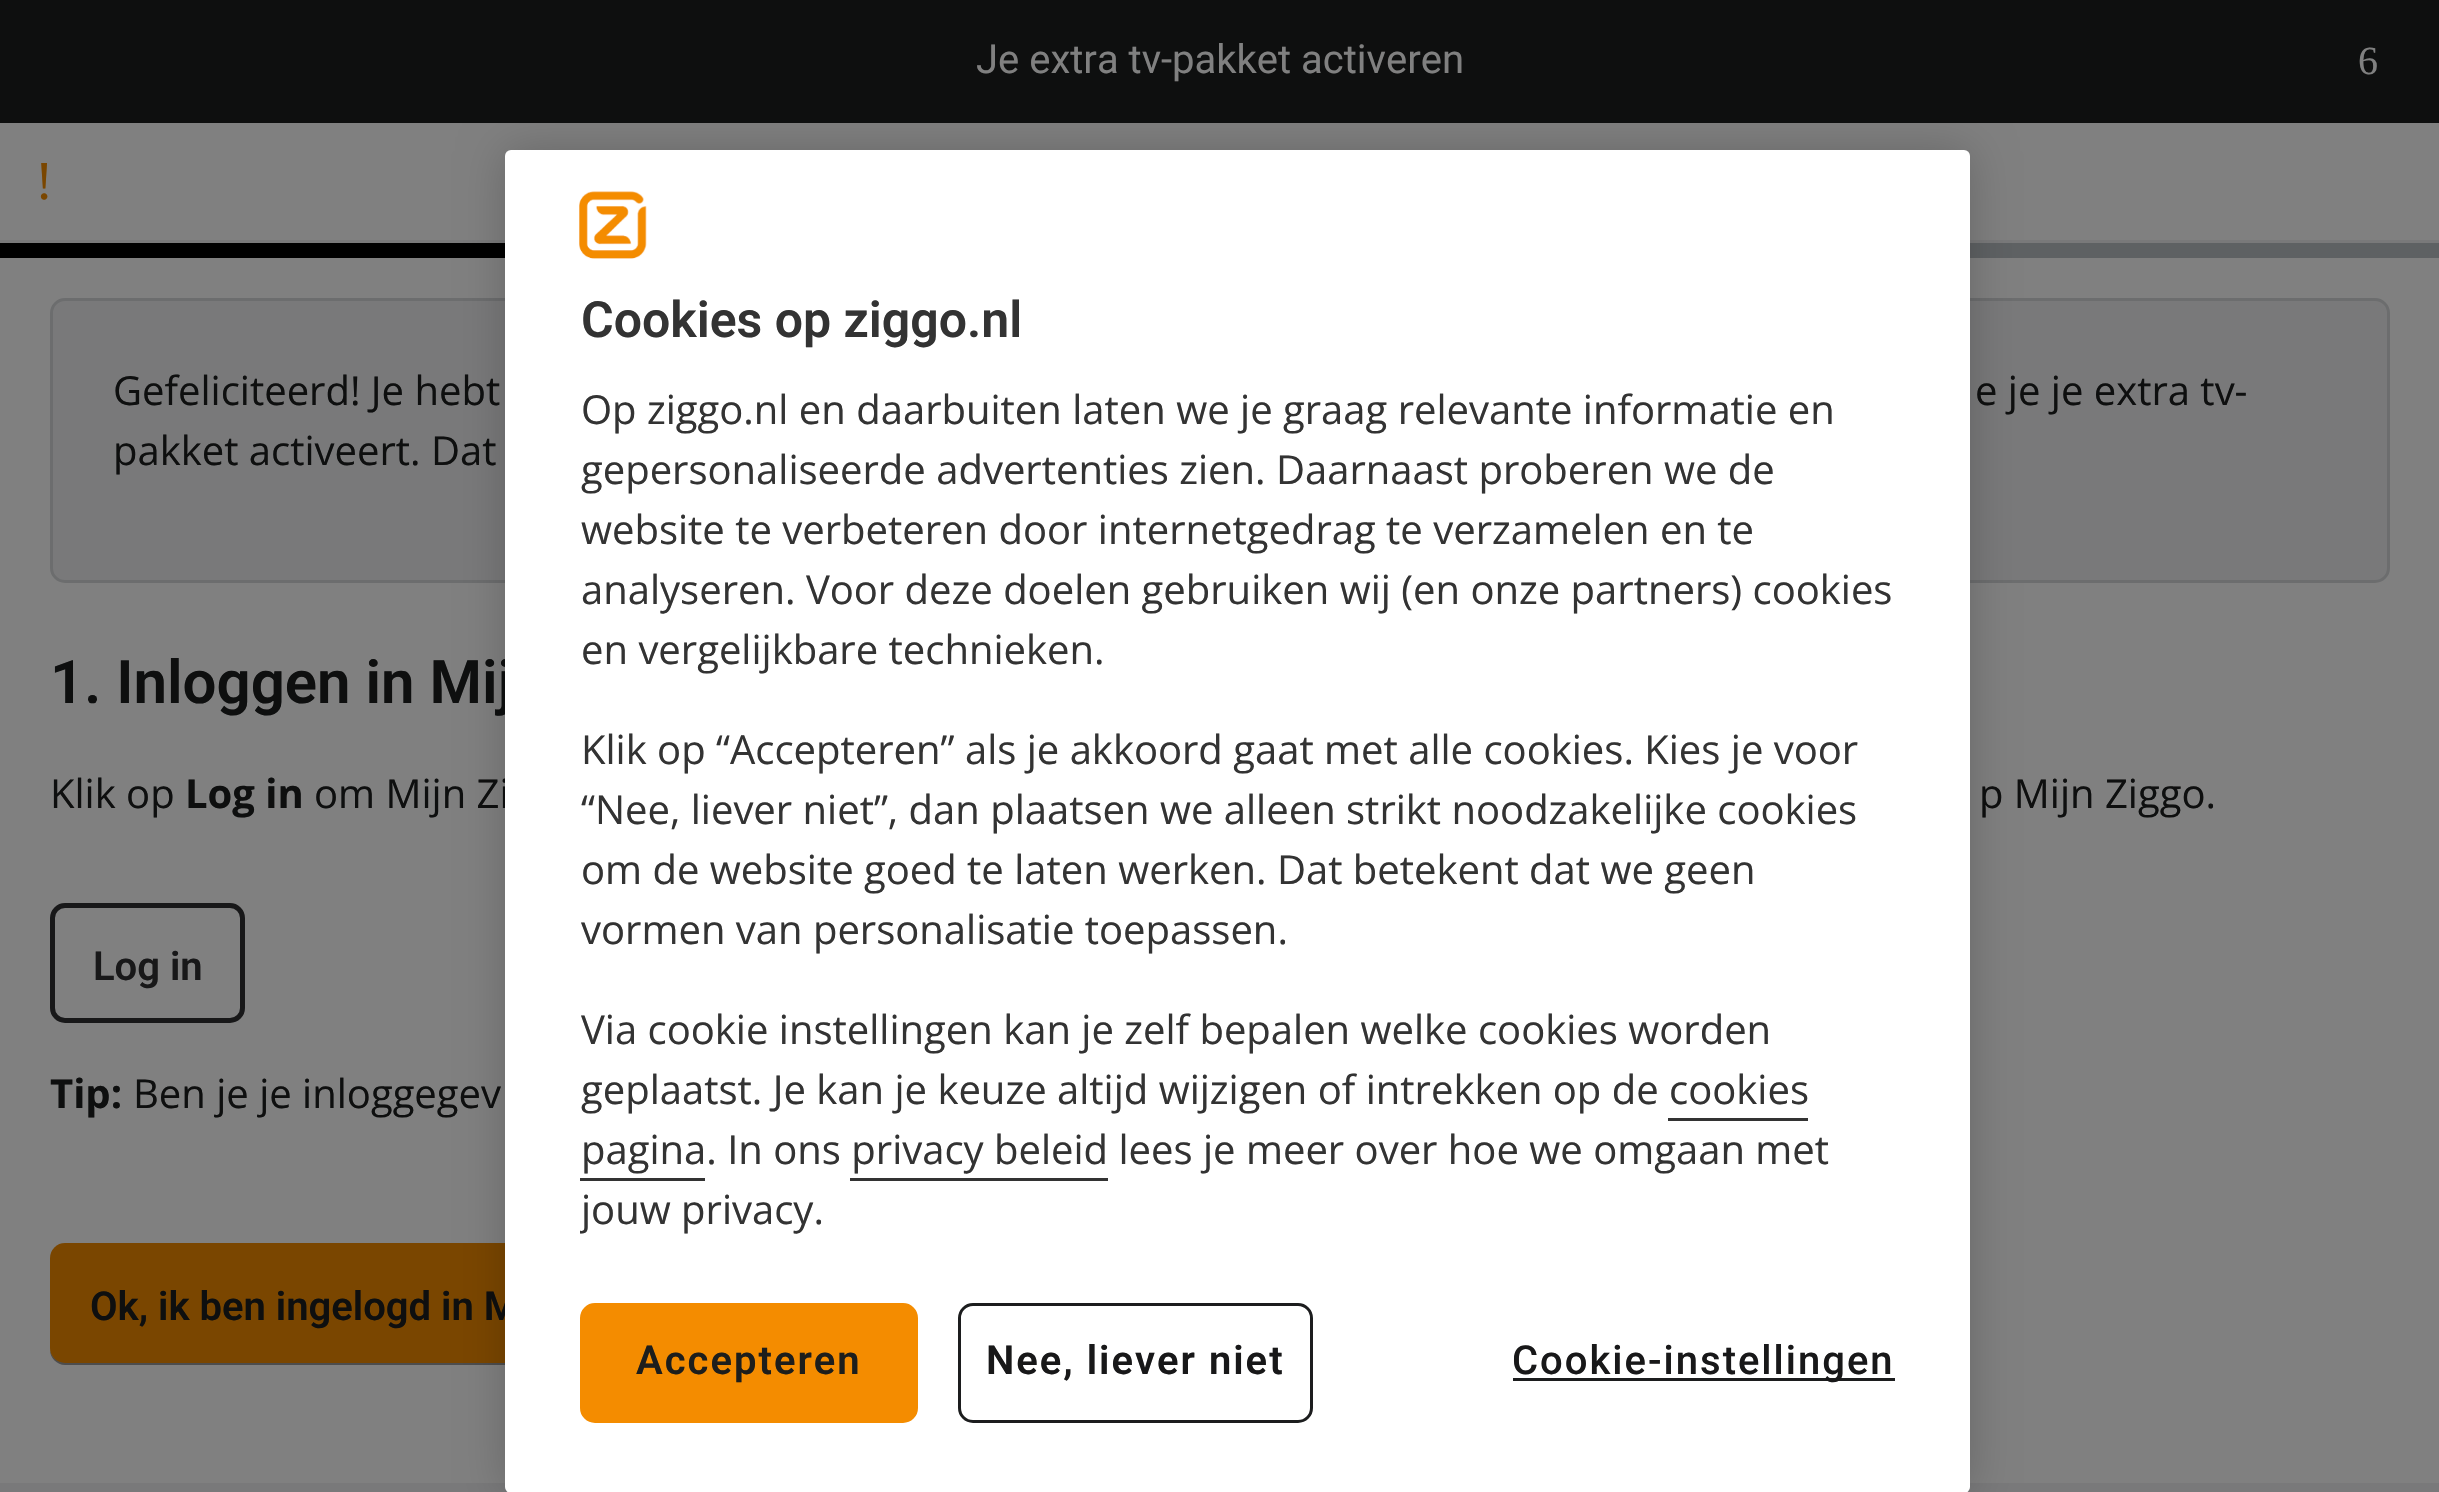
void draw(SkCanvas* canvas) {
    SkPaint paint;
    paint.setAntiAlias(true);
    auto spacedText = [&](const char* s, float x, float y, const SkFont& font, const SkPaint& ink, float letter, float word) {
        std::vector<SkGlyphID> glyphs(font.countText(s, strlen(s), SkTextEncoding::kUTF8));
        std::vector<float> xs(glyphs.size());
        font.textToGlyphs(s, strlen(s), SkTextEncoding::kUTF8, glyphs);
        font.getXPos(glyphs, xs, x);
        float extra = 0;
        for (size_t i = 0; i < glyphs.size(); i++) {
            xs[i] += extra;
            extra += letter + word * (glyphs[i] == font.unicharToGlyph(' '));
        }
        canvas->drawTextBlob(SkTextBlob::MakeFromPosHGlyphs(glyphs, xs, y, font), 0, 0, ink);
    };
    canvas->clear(0xFF808080);
    paint.setColor(0xFF0E0F0F);
    canvas->drawRect(SkRect::MakeXYWH(0, 0, 2439, 123), paint);
    SkFont font1(fontMgr->matchFamilyStyle("Roboto", SkFontStyle::Normal()), 40);
    font1.setSubpixel(true);
    paint.setColor(0xFF808080);
    canvas->drawString("Je extra tv-pakket activeren", 976, 73, font1, paint);
    SkFont font2(fontMgr->matchFamilyStyle("Liberation Serif", SkFontStyle::Normal()), 40);
    font2.setSubpixel(true);
    canvas->drawString("6", 2358, 74, font2, paint);
    paint.setColor(0xFF79797A);
    canvas->drawRect(SkRect::MakeXYWH(0, 240, 2439, 3), paint);
    SkFont font3(fontMgr->matchFamilyStyle("Liberation Serif", SkFontStyle::Normal()), 55);
    font3.setSubpixel(true);
    paint.setColor(0xFF7A4600);
    canvas->drawString("!", 35, 199, font3, paint);
    paint.setColor(0xFF5E6163);
    canvas->drawRect(SkRect::MakeXYWH(1970, 243, 469, 15), paint);
    paint.setColor(0xFF000000);
    canvas->drawRect(SkRect::MakeXYWH(0, 243, 505, 15), paint);
    paint.setColor(0xFF79797A);
    canvas->drawRoundRect(SkRect::MakeXYWH(51.5f, 299.5f, 2337, 282), 13.5f, 13.5f, paint);
    paint.setStyle(SkPaint::kStroke_Style);
    paint.setStrokeWidth(3);
    paint.setColor(0xFF6C6D6E);
    canvas->drawRoundRect(SkRect::MakeXYWH(51.5f, 299.5f, 2337, 282), 13.5f, 13.5f, paint);
    SkFont font4(fontMgr->matchFamilyStyle("Open Sans", SkFontStyle::Normal()), 40);
    font4.setSubpixel(true);
    paint.setStyle(SkPaint::kFill_Style);
    paint.setColor(0xFF0E0F0F);
    canvas->drawString("Gefeliciteerd! Je hebt", 113, 405, font4, paint);
    canvas->drawString("e je je extra tv-", 1975, 405, font4, paint);
    canvas->drawString("pakket activeert. Dat", 113, 465, font4, paint);
    SkFont font5(fontMgr->matchFamilyStyle("Roboto", SkFontStyle(600, SkFontStyle::kNormal_Width, SkFontStyle::kUpright_Slant)), 60);
    font5.setSubpixel(true);
    canvas->drawString("1. Inloggen in Mij", 50, 703, font5, paint);
    canvas->drawString("Klik op", 50, 808, font4, paint);
    SkFont font6(fontMgr->matchFamilyStyle("Open Sans", SkFontStyle::Bold()), 40);
    font6.setSubpixel(true);
    canvas->drawString("Log in", 185, 808, font6, paint);
    canvas->drawString("om Mijn Zi", 314, 808, font4, paint);
    canvas->drawString("p Mijn Ziggo.", 1979, 808, font4, paint);
    paint.setStyle(SkPaint::kStroke_Style);
    paint.setStrokeWidth(5);
    paint.setColor(0xFF181819);
    canvas->drawRoundRect(SkRect::MakeXYWH(52.5f, 905.5f, 190, 115), 12.5f, 12.5f, paint);
    SkFont font7(fontMgr->matchFamilyStyle("Roboto", SkFontStyle(600, SkFontStyle::kNormal_Width, SkFontStyle::kUpright_Slant)), 40);
    font7.setSubpixel(true);
    paint.setStyle(SkPaint::kFill_Style);
    canvas->drawString("Log in", 93, 980, font7, paint);
    paint.setColor(0xFF0E0F0F);
    canvas->drawString("Tip:", 50, 1108, font6, paint);
    canvas->drawString("Ben je je inloggegev", 133, 1108, font4, paint);
    paint.setColor(0xFF4D4D4D);
    canvas->drawPath(SkPathBuilder().moveTo(50, 1348).lineTo(50, 1350).cubicTo(50, 1358, 57, 1365, 65, 1365).lineTo(700, 1365).cubicTo(708, 1365, 715, 1358, 715, 1350).lineTo(715, 1348).cubicTo(715, 1356, 708, 1362, 700, 1362).lineTo(65, 1362).cubicTo(57, 1362, 50, 1356, 50, 1348).close().detach(), paint);
    paint.setColor(0xFF7A4600);
    canvas->drawRoundRect(SkRect::MakeXYWH(50, 1243, 665, 120), 15, 15, paint);
    paint.setColor(0xFF0E0F0F);
    canvas->drawString("Ok, ik ben ingelogd in M", 90, 1320, font7, paint);
    paint.setColor(0xFF79797A);
    canvas->drawRect(SkRect::MakeXYWH(0, 1483, 2439, 9), paint);
    paint.setColor(0x33000000);
    paint.setMaskFilter(SkMaskFilter::MakeBlur(kNormal_SkBlurStyle, 22.5f));
    canvas->drawRoundRect(SkRect::MakeXYWH(505, 150, 1465, 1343), 6, 6, paint);
    paint.setMaskFilter(nullptr);
    paint.setColor(0xFFFFFFFF);
    canvas->drawRoundRect(SkRect::MakeXYWH(505, 150, 1465, 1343), 6, 6, paint);
    canvas->drawImageRect(SkImages::DeferredFromEncodedData(SkData::MakeFromFileName("img1.png")), SkRect::MakeXYWH(579, 191, 68, 68), SkSamplingOptions());
    SkFont font8(fontMgr->matchFamilyStyle("Roboto", SkFontStyle(600, SkFontStyle::kNormal_Width, SkFontStyle::kUpright_Slant)), 50);
    font8.setSubpixel(true);
    paint.setColor(0xFF333333);
    canvas->drawString("Cookies op ziggo.nl", 581, 337, font8, paint);
    canvas->drawString("Op ziggo.nl en daarbuiten laten we je graag relevante informatie en", 581, 424, font4, paint);
    canvas->drawString("gepersonaliseerde advertenties zien. Daarnaast proberen we de", 581, 484, font4, paint);
    canvas->drawString("website te verbeteren door internetgedrag te verzamelen en te", 581, 544, font4, paint);
    canvas->drawString("analyseren. Voor deze doelen gebruiken wij (en onze partners) cookies", 581, 604, font4, paint);
    canvas->drawString("en vergelijkbare technieken.", 581, 664, font4, paint);
    canvas->drawString("Klik op “Accepteren” als je akkoord gaat met alle cookies. Kies je voor", 581, 764, font4, paint);
    canvas->drawString("“Nee, liever niet”, dan plaatsen we alleen strikt noodzakelijke cookies", 581, 824, font4, paint);
    canvas->drawString("om de website goed te laten werken. Dat betekent dat we geen", 581, 884, font4, paint);
    canvas->drawString("vormen van personalisatie toepassen.", 581, 944, font4, paint);
    canvas->drawString("Via cookie instellingen kan je zelf bepalen welke cookies worden", 581, 1044, font4, paint);
    canvas->drawString("geplaatst. Je kan je keuze altijd wijzigen of intrekken op de cookies", 581, 1104, font4, paint);
    canvas->drawString("pagina. In ons privacy beleid lees je meer over hoe we omgaan met", 581, 1164, font4, paint);
    canvas->drawRect(SkRect::MakeXYWH(1668, 1118, 140, 3), paint);
    canvas->drawRect(SkRect::MakeXYWH(580, 1178, 125, 3), paint);
    canvas->drawRect(SkRect::MakeXYWH(850, 1178, 258, 3), paint);
    canvas->save();
    canvas->clipRect(SkRect::MakeXYWH(580, 380, 1315, 860));
    canvas->drawString("jouw privacy.", 581, 1224, font4, paint);
    canvas->restore();
    paint.setColor(0xFFF48C00);
    canvas->drawRoundRect(SkRect::MakeXYWH(581.5f, 1304.5f, 335, 117), 13.5f, 13.5f, paint);
    paint.setStyle(SkPaint::kStroke_Style);
    paint.setStrokeWidth(3);
    canvas->drawRoundRect(SkRect::MakeXYWH(581.5f, 1304.5f, 335, 117), 13.5f, 13.5f, paint);
    paint.setStyle(SkPaint::kFill_Style);
    paint.setColor(0xFF1D1E1C);
    spacedText("Accepteren", 636, 1374, font7, paint, 2, 0);
    paint.setStyle(SkPaint::kStroke_Style);
    paint.setColor(0xFF1C1D1E);
    canvas->drawRoundRect(SkRect::MakeXYWH(959.5f, 1304.5f, 352, 117), 13.5f, 13.5f, paint);
    paint.setStyle(SkPaint::kFill_Style);
    paint.setColor(0xFF181819);
    spacedText("Nee, liever niet", 986, 1374, font7, paint, 2, 0);
    paint.setColor(0xFF1C1D1E);
    canvas->drawRect(SkRect::MakeXYWH(1513, 1378, 382, 3), paint);
    SkFont font9(fontMgr->matchFamilyStyle("Roboto", SkFontStyle(500, SkFontStyle::kNormal_Width, SkFontStyle::kUpright_Slant)), 40);
    font9.setSubpixel(true);
    paint.setColor(0xFF181819);
    spacedText("Cookie-instellingen", 1512, 1374, font9, paint, 2, 0);
}
